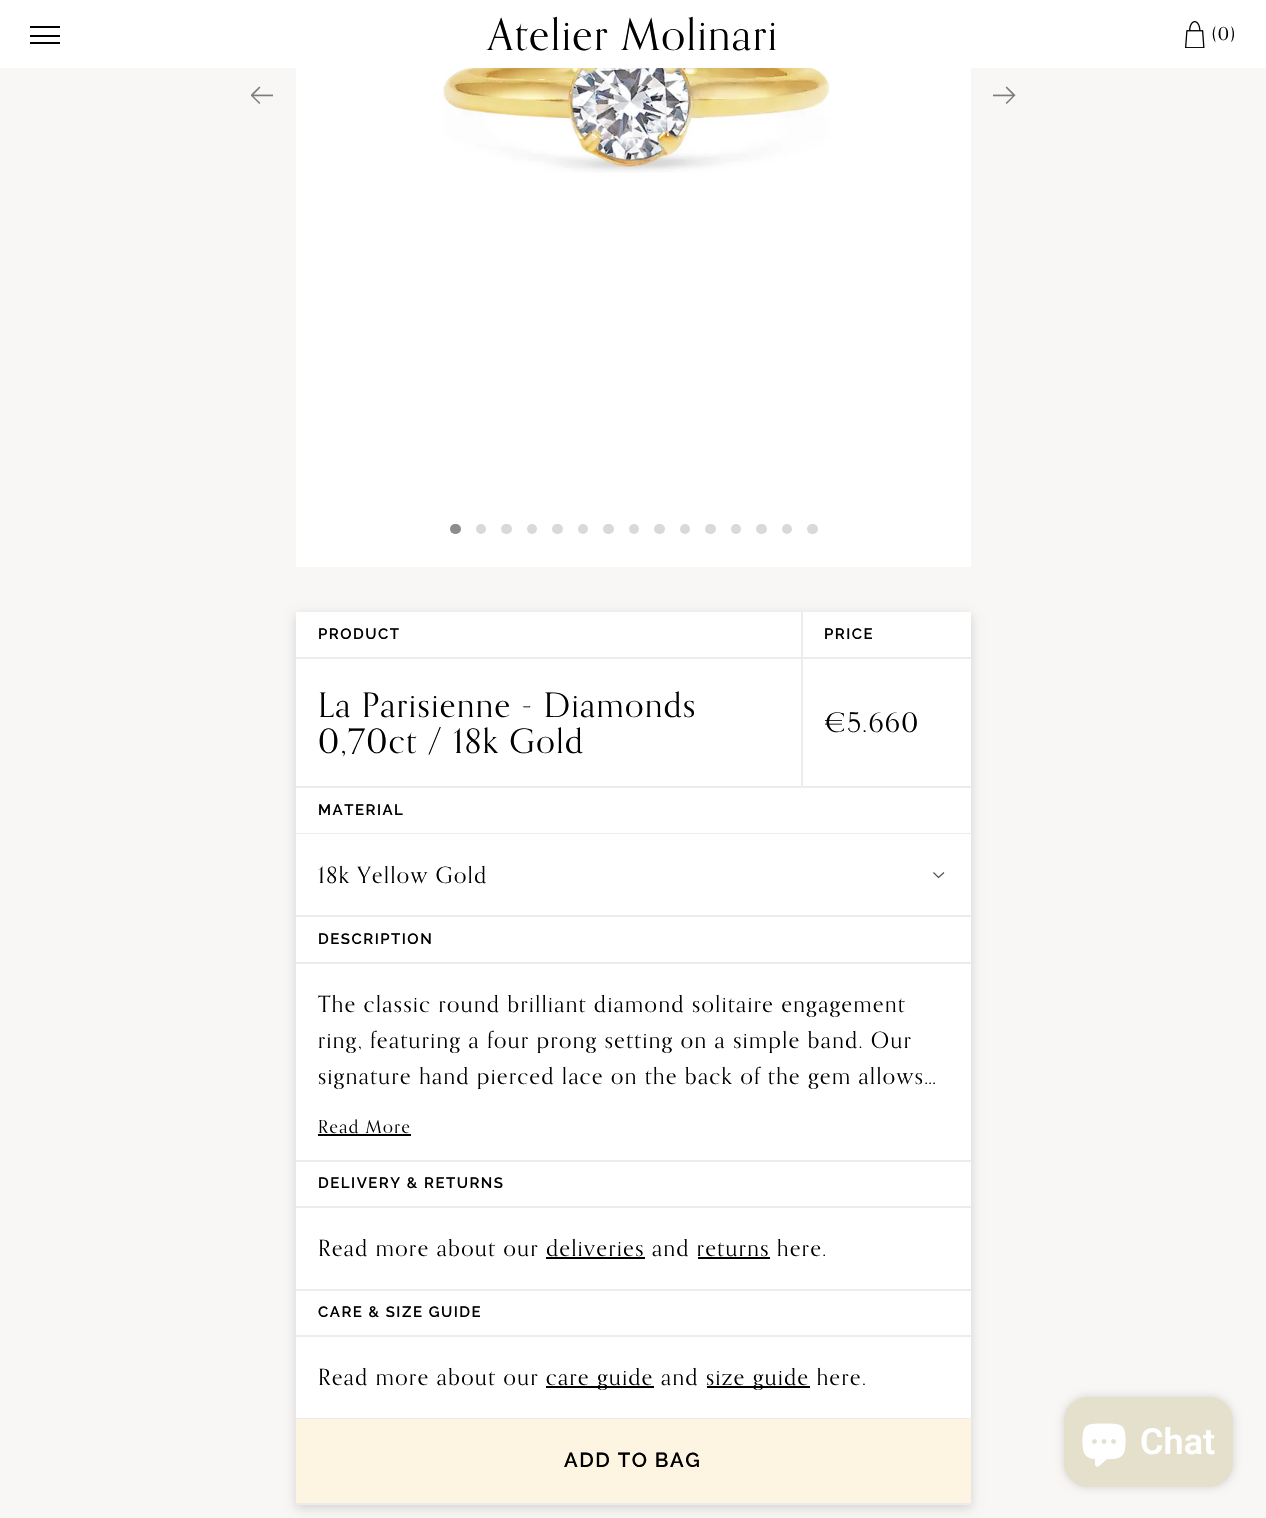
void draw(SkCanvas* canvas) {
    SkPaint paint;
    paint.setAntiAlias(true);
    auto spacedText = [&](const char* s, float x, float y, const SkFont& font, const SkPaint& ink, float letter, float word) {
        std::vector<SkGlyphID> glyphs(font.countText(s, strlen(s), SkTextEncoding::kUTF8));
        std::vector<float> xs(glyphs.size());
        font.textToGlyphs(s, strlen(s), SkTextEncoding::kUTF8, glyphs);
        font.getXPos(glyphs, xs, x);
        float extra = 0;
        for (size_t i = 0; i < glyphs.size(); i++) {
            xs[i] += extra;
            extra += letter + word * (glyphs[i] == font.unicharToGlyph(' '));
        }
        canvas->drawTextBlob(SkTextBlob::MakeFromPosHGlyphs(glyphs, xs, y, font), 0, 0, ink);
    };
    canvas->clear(0xFFF8F7F6);
    paint.setColor(0xFFFFFFFF);
    canvas->drawRect(SkRect::MakeXYWH(0, 0, 1266, 68), paint);
    paint.setColor(0xFF000000);
    canvas->drawRect(SkRect::MakeXYWH(30, 26, 30, 2), paint);
    canvas->drawRect(SkRect::MakeXYWH(30, 35, 30, 2), paint);
    canvas->drawRect(SkRect::MakeXYWH(30, 42, 30, 2), paint);
    SkFont font1(fontMgr->matchFamilyStyle("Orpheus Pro", SkFontStyle::Normal()), 43.5f);
    font1.setSubpixel(true);
    spacedText("Atelier Molinari", 488, 50, font1, paint, 1.5f, 0);
    canvas->drawImageRect(SkImages::DeferredFromEncodedData(SkData::MakeFromFileName("img1.png")), SkRect::MakeXYWH(1185, 21, 20, 27), SkSamplingOptions());
    SkFont font2(fontMgr->matchFamilyStyle("Orpheus Pro", SkFontStyle::Normal()), 18);
    font2.setSubpixel(true);
    spacedText("(0)", 1212, 40, font2, paint, 1.5f, 0);
    paint.setColor(0xFFFFFFFF);
    canvas->drawRect(SkRect::MakeXYWH(296, 68, 675, 499), paint);
    canvas->drawImageRect(SkImages::DeferredFromEncodedData(SkData::MakeFromFileName("img2.png")), SkRect::MakeXYWH(251, 86, 22, 18), SkSamplingOptions());
    canvas->drawImageRect(SkImages::DeferredFromEncodedData(SkData::MakeFromFileName("img3.png")), SkRect::MakeXYWH(443, 68, 387, 105), SkSamplingOptions());
    canvas->drawImageRect(SkImages::DeferredFromEncodedData(SkData::MakeFromFileName("img4.png")), SkRect::MakeXYWH(993, 86, 23, 18), SkSamplingOptions());
    paint.setColor(0xFF8D8D8D);
    canvas->drawRoundRect(SkRect::MakeXYWH(450, 524, 11, 10), 5, 5, paint);
    paint.setColor(0xFFD9D9D9);
    canvas->drawCircle(481, 529, 5, paint);
    canvas->drawRoundRect(SkRect::MakeXYWH(501, 524, 11, 10), 5, 5, paint);
    canvas->drawCircle(532, 529, 5, paint);
    canvas->drawRoundRect(SkRect::MakeXYWH(552, 524, 11, 10), 5, 5, paint);
    canvas->drawCircle(583, 529, 5, paint);
    canvas->drawRoundRect(SkRect::MakeXYWH(603, 524, 11, 10), 5, 5, paint);
    canvas->drawCircle(634, 529, 5, paint);
    canvas->drawRoundRect(SkRect::MakeXYWH(654, 524, 11, 10), 5, 5, paint);
    canvas->drawCircle(685, 529, 5, paint);
    canvas->drawRoundRect(SkRect::MakeXYWH(705, 524, 11, 10), 5, 5, paint);
    canvas->drawCircle(736, 529, 5, paint);
    canvas->drawRoundRect(SkRect::MakeXYWH(756, 524, 11, 10), 5, 5, paint);
    canvas->drawCircle(787, 529, 5, paint);
    canvas->drawRoundRect(SkRect::MakeXYWH(807, 524, 11, 10), 5, 5, paint);
    paint.setColor(0x26000000);
    paint.setMaskFilter(SkMaskFilter::MakeBlur(kNormal_SkBlurStyle, 5));
    canvas->drawRect(SkRect::MakeXYWH(296, 615, 675, 893), paint);
    paint.setMaskFilter(nullptr);
    paint.setColor(0xFFFFFFFF);
    canvas->drawRect(SkRect::MakeXYWH(296, 612, 675, 806), paint);
    paint.setColor(0xFFECECEC);
    canvas->drawRect(SkRect::MakeXYWH(801, 612, 2, 176), paint);
    canvas->drawRect(SkRect::MakeXYWH(296, 786, 675, 2), paint);
    canvas->drawRect(SkRect::MakeXYWH(296, 657, 505, 2), paint);
    SkFont font3(fontMgr->matchFamilyStyle("Raleway", SkFontStyle(600, SkFontStyle::kNormal_Width, SkFontStyle::kUpright_Slant)), 15);
    font3.setSubpixel(true);
    paint.setColor(0xFF000000);
    spacedText("PRODUCT", 318, 639, font3, paint, 1.5f, 0);
    SkFont font4(fontMgr->matchFamilyStyle("Orpheus Pro", SkFontStyle::Normal()), 33.75f);
    font4.setSubpixel(true);
    spacedText("La Parisienne - Diamonds", 318, 717, font4, paint, 1.5f, 0);
    spacedText("0,70ct / 18k Gold", 318, 753, font4, paint, 1.5f, 0);
    paint.setColor(0xFFECECEC);
    canvas->drawRect(SkRect::MakeXYWH(803, 657, 168, 2), paint);
    paint.setColor(0xFF000000);
    spacedText("PRICE", 824, 639, font3, paint, 1.5f, 0);
    SkFont font5(fontMgr->matchFamilyStyle("Orpheus Pro", SkFontStyle::Normal()), 27);
    font5.setSubpixel(true);
    spacedText("€5.660", 824, 732, font5, paint, 1.5f, 0);
    paint.setColor(0xFFECECEC);
    canvas->drawRect(SkRect::MakeXYWH(296, 915, 675, 2), paint);
    canvas->drawRect(SkRect::MakeXYWH(296, 833, 675, 1), paint);
    paint.setColor(0xFF000000);
    spacedText("MATERIAL", 318, 815, font3, paint, 1.5f, 0);
    SkFont font6(fontMgr->matchFamilyStyle("Orpheus Pro", SkFontStyle::Normal()), 22.5f);
    font6.setSubpixel(true);
    spacedText("18k Yellow Gold", 318, 883, font6, paint, 1.5f, 0);
    paint.setStyle(SkPaint::kStroke_Style);
    paint.setStrokeWidth(1.1f);
    paint.setColor(0xFF4A4A4A);
    canvas->drawPath(SkPathBuilder().moveTo(944, 872.5f).lineTo(938.5f, 877.5f).lineTo(933.5f, 872.5f).detach(), paint);
    paint.setStyle(SkPaint::kFill_Style);
    paint.setColor(0xFFECECEC);
    canvas->drawRect(SkRect::MakeXYWH(296, 1160, 675, 2), paint);
    canvas->drawRect(SkRect::MakeXYWH(296, 962, 675, 2), paint);
    paint.setColor(0xFF000000);
    spacedText("DESCRIPTION", 318, 944, font3, paint, 1.5f, 0);
    spacedText("The classic round brilliant diamond solitaire engagement", 318, 1012, font6, paint, 1.5f, 0);
    spacedText("ring, featuring a four prong setting on a simple band. Our", 318, 1048, font6, paint, 1.5f, 0);
    spacedText("signature hand pierced lace on the back of the gem allows…", 318, 1084, font6, paint, 1.5f, 0);
    spacedText("Read More", 318, 1133, font2, paint, 1.5f, 0);
    canvas->drawRect(SkRect::MakeXYWH(318, 1134, 93, 2), paint);
    paint.setColor(0xFFECECEC);
    canvas->drawRect(SkRect::MakeXYWH(296, 1289, 675, 2), paint);
    canvas->drawRect(SkRect::MakeXYWH(296, 1206, 675, 2), paint);
    paint.setColor(0xFF000000);
    spacedText("DELIVERY & RETURNS", 318, 1188, font3, paint, 1.5f, 0);
    spacedText("Read more about our deliveries and returns here.", 318, 1256, font6, paint, 1.5f, 0);
    canvas->drawRect(SkRect::MakeXYWH(546, 1257, 99, 2), paint);
    canvas->drawRect(SkRect::MakeXYWH(698, 1257, 72, 2), paint);
    paint.setColor(0xFFECECEC);
    canvas->drawRect(SkRect::MakeXYWH(296, 1418, 675, 1), paint);
    canvas->drawRect(SkRect::MakeXYWH(296, 1335, 675, 2), paint);
    paint.setColor(0xFF000000);
    spacedText("CARE & SIZE GUIDE", 318, 1317, font3, paint, 1.5f, 0);
    spacedText("Read more about our", 318, 1385, font6, paint, 1.5f, 0);
    canvas->drawRect(SkRect::MakeXYWH(546, 1386, 108, 2), paint);
    spacedText("care guide and", 546, 1385, font6, paint, 1.5f, 0);
    canvas->drawRect(SkRect::MakeXYWH(707, 1386, 103, 2), paint);
    spacedText("size guide here.", 706, 1385, font6, paint, 1.5f, 0);
    paint.setColor(0xFFECECEC);
    canvas->drawRect(SkRect::MakeXYWH(296, 1503, 675, 2), paint);
    paint.setColor(0xFFFDF4E1);
    canvas->drawRect(SkRect::MakeXYWH(296, 1419, 675, 84), paint);
    SkFont font7(fontMgr->matchFamilyStyle("Raleway", SkFontStyle(600, SkFontStyle::kNormal_Width, SkFontStyle::kUpright_Slant)), 20.25f);
    font7.setSubpixel(true);
    paint.setColor(0xFF000000);
    spacedText("ADD TO BAG", 564, 1467, font7, paint, 1.5f, 0);
    paint.setColor(0x26000000);
    paint.setMaskFilter(SkMaskFilter::MakeBlur(kNormal_SkBlurStyle, 4));
    canvas->drawRoundRect(SkRect::MakeXYWH(1064, 1397, 169, 90), 24, 24, paint);
    paint.setMaskFilter(nullptr);
    paint.setColor(0xFFE4E0CB);
    canvas->drawRoundRect(SkRect::MakeXYWH(1064, 1397, 169, 90), 24, 24, paint);
    canvas->drawImageRect(SkImages::DeferredFromEncodedData(SkData::MakeFromFileName("img5.png")), SkRect::MakeXYWH(1082, 1423, 44, 44), SkSamplingOptions());
    SkFont font8(fontMgr->matchFamilyStyle("Roboto", SkFontStyle(600, SkFontStyle::kNormal_Width, SkFontStyle::kUpright_Slant)), 36);
    font8.setSubpixel(true);
    paint.setColor(0xFFFFFFFF);
    canvas->drawString("Chat", 1140, 1454, font8, paint);
}
